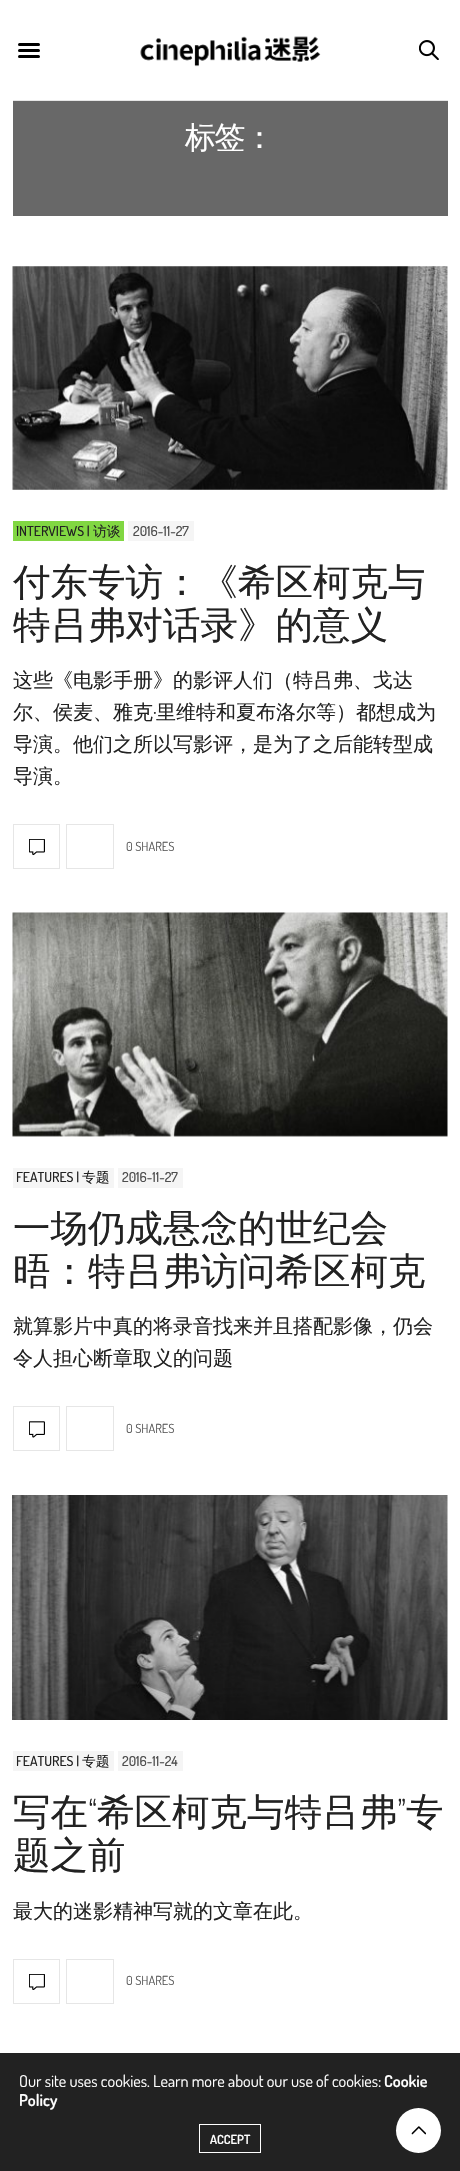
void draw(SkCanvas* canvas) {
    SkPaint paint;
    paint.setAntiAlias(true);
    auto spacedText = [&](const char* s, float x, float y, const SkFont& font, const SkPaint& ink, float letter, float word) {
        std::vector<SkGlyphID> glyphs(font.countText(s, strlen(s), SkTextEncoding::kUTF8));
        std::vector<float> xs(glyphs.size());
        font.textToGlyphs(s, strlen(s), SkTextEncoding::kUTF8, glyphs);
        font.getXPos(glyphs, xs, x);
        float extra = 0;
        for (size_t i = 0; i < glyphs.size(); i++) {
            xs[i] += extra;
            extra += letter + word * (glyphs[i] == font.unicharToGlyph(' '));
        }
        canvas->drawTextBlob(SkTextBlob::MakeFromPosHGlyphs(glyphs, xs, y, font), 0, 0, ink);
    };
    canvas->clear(0xFFFFFFFF);
    paint.setColor(0xFFE6E6E6);
    canvas->drawRect(SkRect::MakeXYWH(13, 100, 435, 1), paint);
    paint.setColor(0xFF000000);
    canvas->drawRoundRect(SkRect::MakeXYWH(18, 43, 22, 3), 1.5f, 1.5f, paint);
    canvas->drawRoundRect(SkRect::MakeXYWH(18, 49, 22, 3), 1.5f, 1.5f, paint);
    canvas->drawRoundRect(SkRect::MakeXYWH(18, 55, 22, 3), 1.5f, 1.5f, paint);
    canvas->drawImageRect(SkImages::DeferredFromEncodedData(SkData::MakeFromFileName("img1.png")), SkRect::MakeXYWH(140, 36, 181, 31), SkSamplingOptions());
    canvas->drawImageRect(SkImages::DeferredFromEncodedData(SkData::MakeFromFileName("img2.png")), SkRect::MakeXYWH(419, 40, 20, 20), SkSamplingOptions());
    paint.setColor(0xFF686868);
    canvas->drawRect(SkRect::MakeXYWH(13, 101, 435, 115), paint);
    SkFont font1(fontMgr->matchFamilyStyle("WenQuanYi Zen Hei", SkFontStyle(500, SkFontStyle::kNormal_Width, SkFontStyle::kUpright_Slant)), 31);
    font1.setSubpixel(true);
    paint.setColor(0xFFFFFFFF);
    spacedText("标签：", 185, 148, font1, paint, -1.5f, 0);
    canvas->drawImageRect(SkImages::DeferredFromEncodedData(SkData::MakeFromFileName("img3.png")), SkRect::MakeXYWH(12, 266, 436, 224), SkSamplingOptions());
    paint.setColor(0xFF81D742);
    canvas->drawRect(SkRect::MakeXYWH(13, 521, 111, 20), paint);
    SkFont font2(fontMgr->matchFamilyStyle("Dosis", SkFontStyle(500, SkFontStyle::kNormal_Width, SkFontStyle::kUpright_Slant)), 13.75f);
    font2.setSubpixel(true);
    paint.setColor(0xFF222222);
    canvas->drawString("INTERVIEWS |", 16, 536, font2, paint);
    SkFont font3(fontMgr->matchFamilyStyle("WenQuanYi Zen Hei", SkFontStyle(500, SkFontStyle::kNormal_Width, SkFontStyle::kUpright_Slant)), 13.75f);
    font3.setSubpixel(true);
    canvas->drawString("访谈", 93, 536, font3, paint);
    paint.setColor(0xFFF5F5F5);
    canvas->drawRect(SkRect::MakeXYWH(128, 521, 66, 20), paint);
    paint.setColor(0xFF4D4D4D);
    canvas->drawString("2016-11-27", 133, 536, font2, paint);
    SkFont font4(fontMgr->matchFamilyStyle("WenQuanYi Zen Hei", SkFontStyle(500, SkFontStyle::kNormal_Width, SkFontStyle::kUpright_Slant)), 37.5f);
    font4.setSubpixel(true);
    paint.setColor(0xFF222222);
    canvas->drawString("付东专访：《希区柯克与", 13, 595, font4, paint);
    canvas->drawString("特吕弗对话录》的意义", 13, 638, font4, paint);
    SkFont font5(fontMgr->matchFamilyStyle("WenQuanYi Zen Hei", SkFontStyle(500, SkFontStyle::kNormal_Width, SkFontStyle::kUpright_Slant)), 20);
    font5.setSubpixel(true);
    canvas->drawString("这些《电影手册》的影评人们（特吕弗、戈达", 13, 687, font5, paint);
    canvas->drawString("尔、侯麦、雅克", 13, 719, font5, paint);
    SkFont font6(fontMgr->matchFamilyStyle("Dosis", SkFontStyle::Normal()), 20);
    font6.setSubpixel(true);
    canvas->drawString("·", 153, 719, font6, paint);
    canvas->drawString("里维特和夏布洛尔等）都想成为", 156, 719, font5, paint);
    canvas->drawString("导演。他们之所以写影评，是为了之后能转型成", 13, 751, font5, paint);
    canvas->drawString("导演。", 13, 783, font5, paint);
    paint.setStyle(SkPaint::kStroke_Style);
    paint.setStrokeWidth(1);
    paint.setColor(0xFFE6E6E6);
    canvas->drawRect(SkRect::MakeXYWH(13.5f, 824.5f, 46, 44), paint);
    canvas->drawImageRect(SkImages::DeferredFromEncodedData(SkData::MakeFromFileName("img4.png")), SkRect::MakeXYWH(29, 839, 16, 17), SkSamplingOptions());
    canvas->drawRect(SkRect::MakeXYWH(66.5f, 824.5f, 47, 44), paint);
    SkFont font7(fontMgr->matchFamilyStyle("Dosis", SkFontStyle::Normal()), 12.5f);
    font7.setSubpixel(true);
    paint.setStyle(SkPaint::kFill_Style);
    paint.setColor(0xFF595959);
    canvas->drawString("0 SHARES", 126, 851, font7, paint);
    canvas->drawImageRect(SkImages::DeferredFromEncodedData(SkData::MakeFromFileName("img5.png")), SkRect::MakeXYWH(12, 912, 436, 225), SkSamplingOptions());
    paint.setColor(0xFFF5F5F5);
    canvas->drawRect(SkRect::MakeXYWH(13, 1168, 101, 20), paint);
    paint.setColor(0xFF222222);
    canvas->drawString("FEATURES |", 16, 1182, font2, paint);
    canvas->drawString("专题", 82, 1182, font3, paint);
    paint.setColor(0xFFF5F5F5);
    canvas->drawRect(SkRect::MakeXYWH(118, 1168, 65, 20), paint);
    paint.setColor(0xFF4D4D4D);
    canvas->drawString("2016-11-27", 122, 1182, font2, paint);
    paint.setColor(0xFF222222);
    canvas->drawString("一场仍成悬念的世纪会", 13, 1241, font4, paint);
    canvas->drawString("晤：特吕弗访问希区柯克", 13, 1284, font4, paint);
    canvas->drawString("就算影片中真的将录音找来并且搭配影像，仍会", 13, 1333, font5, paint);
    canvas->drawString("令人担心断章取义的问题", 13, 1365, font5, paint);
    paint.setStyle(SkPaint::kStroke_Style);
    paint.setColor(0xFFE6E6E6);
    canvas->drawRect(SkRect::MakeXYWH(13.5f, 1406.5f, 46, 44), paint);
    canvas->drawImageRect(SkImages::DeferredFromEncodedData(SkData::MakeFromFileName("img6.png")), SkRect::MakeXYWH(29, 1421, 16, 17), SkSamplingOptions());
    canvas->drawRect(SkRect::MakeXYWH(66.5f, 1406.5f, 47, 44), paint);
    paint.setStyle(SkPaint::kFill_Style);
    paint.setColor(0xFF595959);
    canvas->drawString("0 SHARES", 126, 1433, font7, paint);
    canvas->drawImageRect(SkImages::DeferredFromEncodedData(SkData::MakeFromFileName("img7.png")), SkRect::MakeXYWH(12, 1495, 436, 225), SkSamplingOptions());
    paint.setColor(0xFFF5F5F5);
    canvas->drawRect(SkRect::MakeXYWH(13, 1751, 101, 20), paint);
    paint.setColor(0xFF222222);
    canvas->drawString("FEATURES |", 16, 1766, font2, paint);
    canvas->drawString("专题", 82, 1766, font3, paint);
    paint.setColor(0xFFF5F5F5);
    canvas->drawRect(SkRect::MakeXYWH(118, 1751, 65, 20), paint);
    paint.setColor(0xFF4D4D4D);
    canvas->drawString("2016-11-24", 122, 1766, font2, paint);
    paint.setColor(0xFF222222);
    canvas->drawString("写在", 13, 1825, font4, paint);
    SkFont font8(fontMgr->matchFamilyStyle("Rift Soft", SkFontStyle::Normal()), 37.5f);
    font8.setSubpixel(true);
    canvas->drawString("“", 88, 1825, font8, paint);
    canvas->drawString("希区柯克与特吕弗", 97, 1825, font4, paint);
    canvas->drawString("”", 397, 1825, font8, paint);
    canvas->drawString("专", 406, 1825, font4, paint);
    canvas->drawString("题之前", 13, 1868, font4, paint);
    canvas->drawString("最大的迷影精神写就的文章在此。", 13, 1918, font5, paint);
    paint.setStyle(SkPaint::kStroke_Style);
    paint.setColor(0xFFE6E6E6);
    canvas->drawRect(SkRect::MakeXYWH(13.5f, 1959.5f, 46, 44), paint);
    canvas->drawImageRect(SkImages::DeferredFromEncodedData(SkData::MakeFromFileName("img8.png")), SkRect::MakeXYWH(29, 1974, 16, 16), SkSamplingOptions());
    canvas->drawRect(SkRect::MakeXYWH(66.5f, 1959.5f, 47, 44), paint);
    paint.setStyle(SkPaint::kFill_Style);
    paint.setColor(0xFF595959);
    canvas->drawString("0 SHARES", 126, 1985, font7, paint);
    paint.setColor(0xFF222222);
    canvas->drawRect(SkRect::MakeXYWH(0, 2053, 460, 118), paint);
    SkFont font9(fontMgr->matchFamilyStyle("Dosis", SkFontStyle::Normal()), 16.25f);
    font9.setSubpixel(true);
    paint.setColor(0xFFFFFFFF);
    canvas->drawString("Our site uses cookies. Learn more about our use of cookies:", 19, 2087, font9, paint);
    SkFont font10(fontMgr->matchFamilyStyle("Dosis", SkFontStyle(600, SkFontStyle::kNormal_Width, SkFontStyle::kUpright_Slant)), 16.25f);
    font10.setSubpixel(true);
    canvas->drawString("Cookie", 384, 2087, font10, paint);
    canvas->drawString("Policy", 19, 2106, font10, paint);
    paint.setStyle(SkPaint::kStroke_Style);
    canvas->drawRect(SkRect::MakeXYWH(199.5f, 2124.5f, 61, 28), paint);
    SkFont font11(fontMgr->matchFamilyStyle("Dosis", SkFontStyle(600, SkFontStyle::kNormal_Width, SkFontStyle::kUpright_Slant)), 12.5f);
    font11.setSubpixel(true);
    paint.setStyle(SkPaint::kFill_Style);
    canvas->drawString("ACCEPT", 210, 2144, font11, paint);
    canvas->drawCircle(418.5f, 2130.5f, 22.5f, paint);
    canvas->drawImageRect(SkImages::DeferredFromEncodedData(SkData::MakeFromFileName("img9.png")), SkRect::MakeXYWH(411, 2126, 15, 9), SkSamplingOptions());
}
